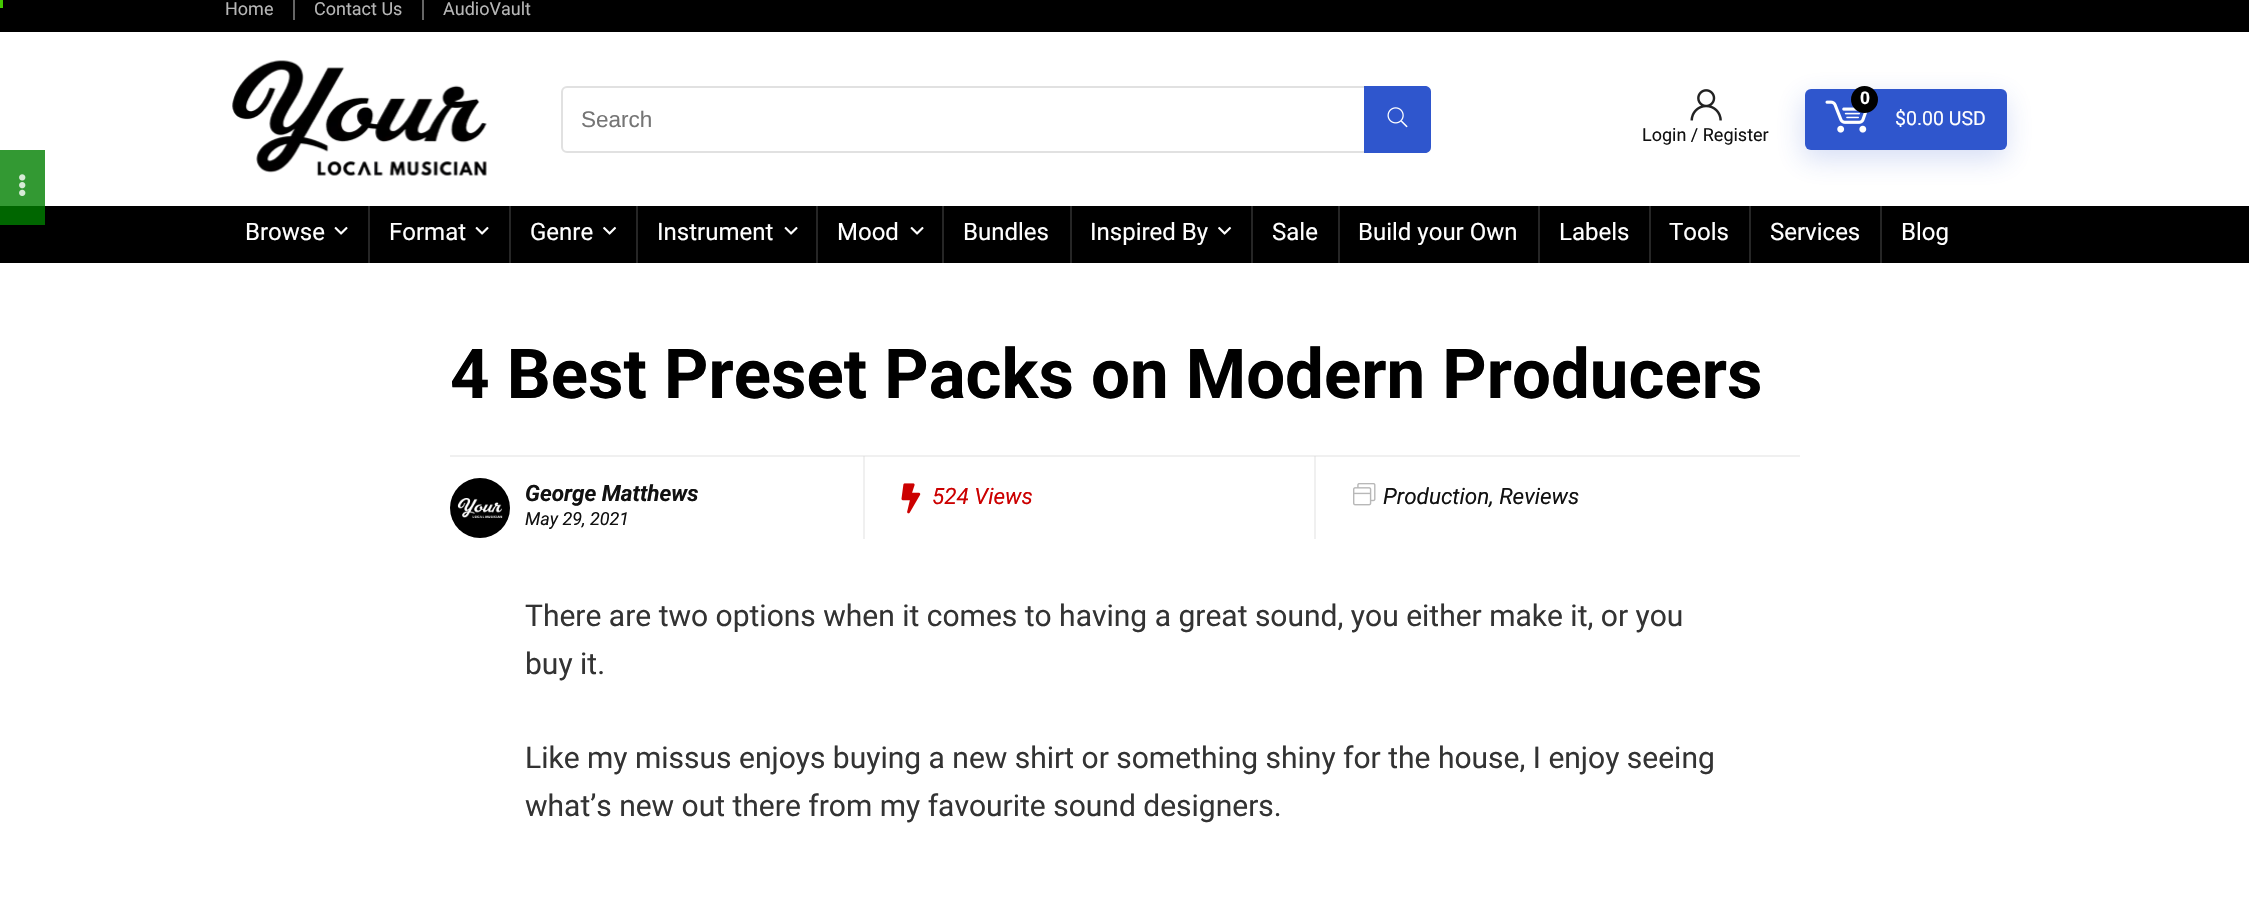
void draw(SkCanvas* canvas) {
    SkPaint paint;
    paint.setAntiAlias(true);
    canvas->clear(0xFFFFFFFF);
    paint.setColor(0xFF339933);
    canvas->drawRect(SkRect::MakeXYWH(0, 150, 45, 56), paint);
    paint.setColor(0xFFF0F0F0);
    canvas->drawRect(SkRect::MakeXYWH(1314, 456, 2, 83), paint);
    canvas->drawRect(SkRect::MakeXYWH(863, 456, 2, 83), paint);
    paint.setColor(0xFF000000);
    canvas->drawRect(SkRect::MakeXYWH(0, 0, 2249, 32), paint);
    paint.setColor(0xFF43C801);
    canvas->drawRect(SkRect::MakeXYWH(0, 0, 3, 8), paint);
    SkFont font1(fontMgr->matchFamilyStyle("Roboto", SkFontStyle::Normal()), 18);
    font1.setSubpixel(true);
    paint.setColor(0xFFB6B6B6);
    canvas->drawString("Home", 225, 15, font1, paint);
    paint.setColor(0xFF666666);
    canvas->drawRect(SkRect::MakeXYWH(293, 0, 2, 20), paint);
    paint.setColor(0xFFB6B6B6);
    canvas->drawString("Contact Us", 314, 15, font1, paint);
    paint.setColor(0xFF666666);
    canvas->drawRect(SkRect::MakeXYWH(422, 0, 2, 20), paint);
    paint.setColor(0xFFB6B6B6);
    canvas->drawString("AudioVault", 443, 15, font1, paint);
    canvas->drawImageRect(SkImages::DeferredFromEncodedData(SkData::MakeFromFileName("img1.png")), SkRect::MakeXYWH(232, 60, 255, 116), SkSamplingOptions());
    paint.setStyle(SkPaint::kStroke_Style);
    paint.setStrokeWidth(2);
    paint.setColor(0xFFE1E1E1);
    canvas->drawRoundRect(SkRect::MakeXYWH(562, 87, 868, 65), 5, 5, paint);
    SkFont font2(fontMgr->matchFamilyStyle("Liberation Sans", SkFontStyle::Normal()), 22.5f);
    font2.setSubpixel(true);
    paint.setStyle(SkPaint::kFill_Style);
    paint.setColor(0xFF757575);
    canvas->drawString("Search", 581, 127, font2, paint);
    paint.setColor(0xFF2F56CD);
    canvas->drawPath(SkPathBuilder().moveTo(1364, 86).lineTo(1425, 86).cubicTo(1428.5f, 86, 1431, 88.5f, 1431, 92).lineTo(1431, 147).cubicTo(1431, 150.5f, 1428.5f, 153, 1425, 153).lineTo(1364, 153).close().detach(), paint);
    canvas->drawImageRect(SkImages::DeferredFromEncodedData(SkData::MakeFromFileName("img2.png")), SkRect::MakeXYWH(1387, 107, 21, 21), SkSamplingOptions());
    paint.setColor(0x332F56CD);
    paint.setMaskFilter(SkMaskFilter::MakeBlur(kNormal_SkBlurStyle, 14));
    canvas->drawRoundRect(SkRect::MakeXYWH(1803, 98, 203, 61), 6, 6, paint);
    paint.setMaskFilter(nullptr);
    paint.setColor(0xFF2F56CD);
    canvas->drawRoundRect(SkRect::MakeXYWH(1805, 89, 202, 61), 6, 6, paint);
    canvas->drawImageRect(SkImages::DeferredFromEncodedData(SkData::MakeFromFileName("img3.png")), SkRect::MakeXYWH(1825, 100, 43, 33), SkSamplingOptions());
    paint.setColor(0xFF000000);
    canvas->drawCircle(1864.5f, 99.5f, 13.5f, paint);
    SkFont font3(fontMgr->matchFamilyStyle("Liberation Sans", SkFontStyle::Bold()), 18);
    font3.setSubpixel(true);
    paint.setColor(0xFFFFFFFF);
    canvas->drawString("0", 1860, 104, font3, paint);
    SkFont font4(fontMgr->matchFamilyStyle("Roboto", SkFontStyle::Normal()), 19.5f);
    font4.setSubpixel(true);
    canvas->drawString("$0.00 USD", 1895, 125, font4, paint);
    canvas->drawImageRect(SkImages::DeferredFromEncodedData(SkData::MakeFromFileName("img4.png")), SkRect::MakeXYWH(1690, 89, 32, 32), SkSamplingOptions());
    paint.setColor(0xFF111111);
    canvas->drawString("Login / Register", 1642, 141, font1, paint);
    paint.setColor(0xFF000000);
    canvas->drawRect(SkRect::MakeXYWH(0, 206, 2249, 57), paint);
    paint.setColor(0xFF006600);
    canvas->drawRect(SkRect::MakeXYWH(0, 206, 45, 19), paint);
    paint.setColor(0xFF262626);
    canvas->drawRect(SkRect::MakeXYWH(368, 206, 2, 57), paint);
    SkFont font5(fontMgr->matchFamilyStyle("Roboto", SkFontStyle::Normal()), 24);
    font5.setSubpixel(true);
    paint.setColor(0xFFFFFFFF);
    canvas->drawString("Browse", 245, 240, font5, paint);
    canvas->drawImageRect(SkImages::DeferredFromEncodedData(SkData::MakeFromFileName("img5.png")), SkRect::MakeXYWH(334, 226, 14, 9), SkSamplingOptions());
    paint.setColor(0xFF262626);
    canvas->drawRect(SkRect::MakeXYWH(509, 206, 2, 57), paint);
    paint.setColor(0xFFFFFFFF);
    canvas->drawString("Format", 389, 240, font5, paint);
    canvas->drawImageRect(SkImages::DeferredFromEncodedData(SkData::MakeFromFileName("img5.png")), SkRect::MakeXYWH(475, 226, 14, 9), SkSamplingOptions());
    paint.setColor(0xFF262626);
    canvas->drawRect(SkRect::MakeXYWH(636, 206, 2, 57), paint);
    paint.setColor(0xFFFFFFFF);
    canvas->drawString("Genre", 530, 240, font5, paint);
    canvas->drawImageRect(SkImages::DeferredFromEncodedData(SkData::MakeFromFileName("img6.png")), SkRect::MakeXYWH(603, 226, 14, 9), SkSamplingOptions());
    paint.setColor(0xFF262626);
    canvas->drawRect(SkRect::MakeXYWH(816, 206, 2, 57), paint);
    paint.setColor(0xFFFFFFFF);
    canvas->drawString("Instrument", 657, 240, font5, paint);
    canvas->drawImageRect(SkImages::DeferredFromEncodedData(SkData::MakeFromFileName("img5.png")), SkRect::MakeXYWH(784, 226, 14, 9), SkSamplingOptions());
    paint.setColor(0xFF262626);
    canvas->drawRect(SkRect::MakeXYWH(942, 206, 2, 57), paint);
    paint.setColor(0xFFFFFFFF);
    canvas->drawString("Mood", 837, 240, font5, paint);
    canvas->drawImageRect(SkImages::DeferredFromEncodedData(SkData::MakeFromFileName("img5.png")), SkRect::MakeXYWH(910, 226, 14, 9), SkSamplingOptions());
    paint.setColor(0xFF262626);
    canvas->drawRect(SkRect::MakeXYWH(1070, 206, 2, 57), paint);
    paint.setColor(0xFFFFFFFF);
    canvas->drawString("Bundles", 963, 240, font5, paint);
    paint.setColor(0xFF262626);
    canvas->drawRect(SkRect::MakeXYWH(1251, 206, 2, 57), paint);
    paint.setColor(0xFFFFFFFF);
    canvas->drawString("Inspired By", 1090, 240, font5, paint);
    canvas->drawImageRect(SkImages::DeferredFromEncodedData(SkData::MakeFromFileName("img6.png")), SkRect::MakeXYWH(1218, 226, 14, 9), SkSamplingOptions());
    paint.setColor(0xFF262626);
    canvas->drawRect(SkRect::MakeXYWH(1338, 206, 2, 57), paint);
    paint.setColor(0xFFFFFFFF);
    canvas->drawString("Sale", 1272, 240, font5, paint);
    paint.setColor(0xFF262626);
    canvas->drawRect(SkRect::MakeXYWH(1538, 206, 2, 57), paint);
    paint.setColor(0xFFFFFFFF);
    canvas->drawString("Build your Own", 1358, 240, font5, paint);
    paint.setColor(0xFF262626);
    canvas->drawRect(SkRect::MakeXYWH(1649, 206, 2, 57), paint);
    paint.setColor(0xFFFFFFFF);
    canvas->drawString("Labels", 1559, 240, font5, paint);
    paint.setColor(0xFF262626);
    canvas->drawRect(SkRect::MakeXYWH(1749, 206, 2, 57), paint);
    paint.setColor(0xFFFFFFFF);
    canvas->drawString("Tools", 1669, 240, font5, paint);
    paint.setColor(0xFF262626);
    canvas->drawRect(SkRect::MakeXYWH(1880, 206, 2, 57), paint);
    paint.setColor(0xFFFFFFFF);
    canvas->drawString("Services", 1770, 240, font5, paint);
    canvas->drawString("Blog", 1901, 240, font5, paint);
    SkFont font6(fontMgr->matchFamilyStyle("Roboto", SkFontStyle::Bold()), 69);
    font6.setSubpixel(true);
    paint.setColor(0xFF000000);
    canvas->drawString("4 Best Preset Packs on Modern Producers", 450, 398, font6, paint);
    paint.setColor(0xFFF0F0F0);
    canvas->drawRect(SkRect::MakeXYWH(450, 455, 1350, 2), paint);
    paint.setColor(0xFFE6E6E6);
    canvas->drawRect(SkRect::MakeXYWH(1314, 456, 2, 1), paint);
    canvas->drawRect(SkRect::MakeXYWH(863, 456, 2, 1), paint);
    canvas->drawImageRect(SkImages::DeferredFromEncodedData(SkData::MakeFromFileName("img7.png")), SkRect::MakeXYWH(450, 478, 60, 60), SkSamplingOptions());
    SkFont font7(fontMgr->matchFamilyStyle("Roboto", SkFontStyle::BoldItalic()), 22.5f);
    font7.setSubpixel(true);
    paint.setColor(0xFF111111);
    canvas->drawString("George Matthews", 525, 501, font7, paint);
    SkFont font8(fontMgr->matchFamilyStyle("Roboto", SkFontStyle::Italic()), 18);
    font8.setSubpixel(true);
    canvas->drawString("May 29, 2021", 525, 525, font8, paint);
    canvas->drawImageRect(SkImages::DeferredFromEncodedData(SkData::MakeFromFileName("img8.png")), SkRect::MakeXYWH(901, 483, 20, 31), SkSamplingOptions());
    SkFont font9(fontMgr->matchFamilyStyle("Roboto", SkFontStyle::Italic()), 22.5f);
    font9.setSubpixel(true);
    paint.setColor(0xFFCC0000);
    canvas->drawString("524 Views", 932, 504, font9, paint);
    canvas->drawImageRect(SkImages::DeferredFromEncodedData(SkData::MakeFromFileName("img9.png")), SkRect::MakeXYWH(1353, 483, 23, 23), SkSamplingOptions());
    paint.setColor(0xFF111111);
    canvas->drawString("Production, Reviews", 1383, 504, font9, paint);
    canvas->drawImageRect(SkImages::DeferredFromEncodedData(SkData::MakeFromFileName("img10.png")), SkRect::MakeXYWH(19, 174, 7, 22), SkSamplingOptions());
    SkFont font10(fontMgr->matchFamilyStyle("Roboto", SkFontStyle::Normal()), 30);
    font10.setSubpixel(true);
    paint.setColor(0xFF333333);
    canvas->drawString("There are two options when it comes to having a great sound, you either make it, or you", 525, 626, font10, paint);
    canvas->drawString("buy it.", 525, 674, font10, paint);
    canvas->drawString("Like my missus enjoys buying a new shirt or something shiny for the house, I enjoy seeing", 525, 768, font10, paint);
    canvas->drawString("what’s new out there from my favourite sound designers.", 525, 816, font10, paint);
}
